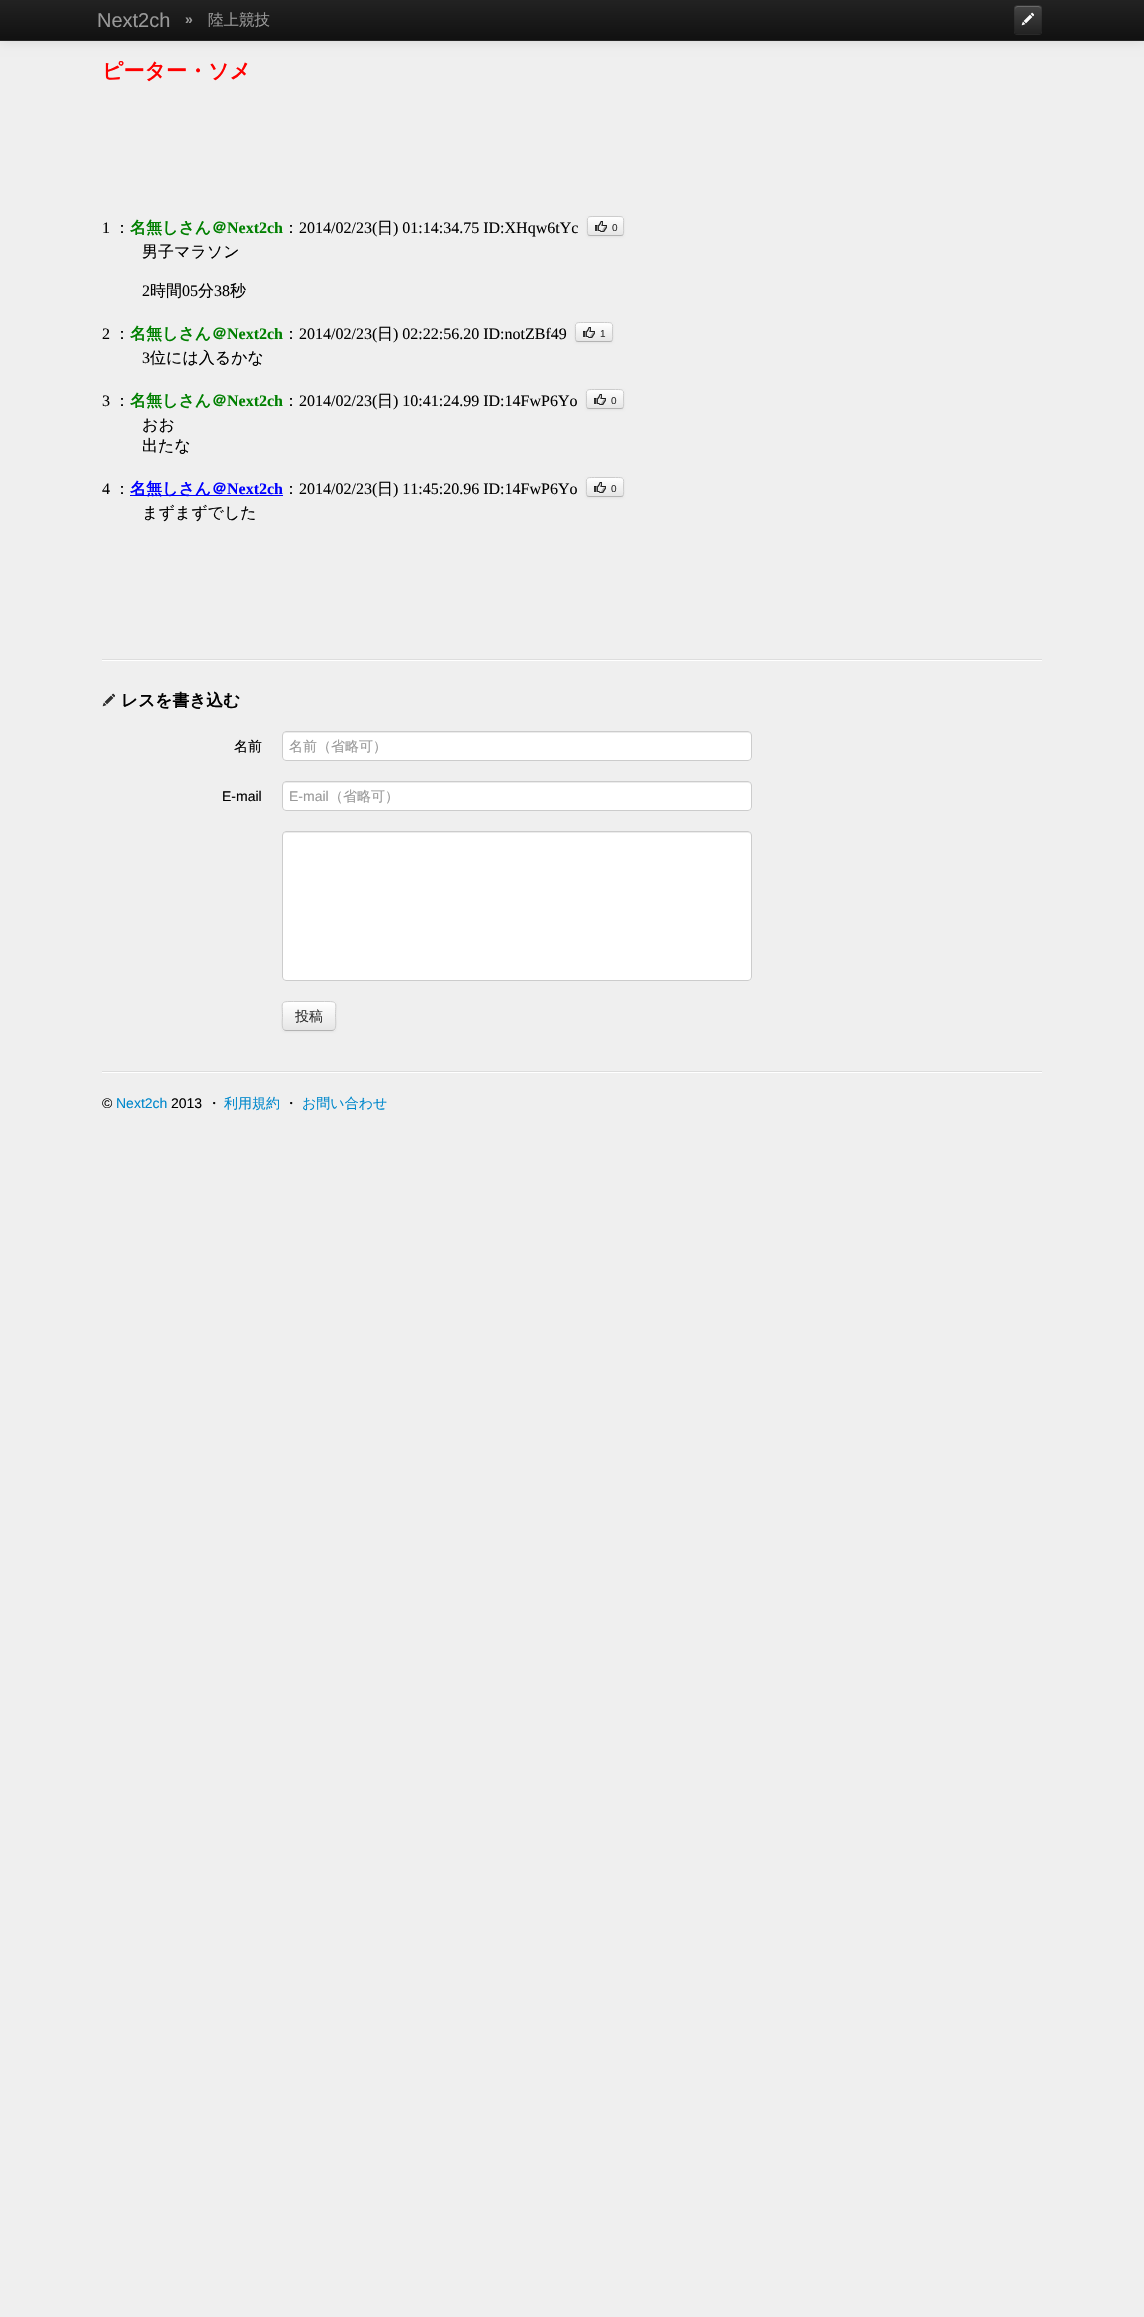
void draw(SkCanvas* canvas) {
    SkPaint paint;
    paint.setAntiAlias(true);
    canvas->clear(0xFFEFEFEF);
    paint.setColor(0x1A000000);
    paint.setMaskFilter(SkMaskFilter::MakeBlur(kNormal_SkBlurStyle, 5));
    canvas->drawRect(SkRect::MakeXYWH(0, 1, 1144, 41), paint);
    paint.setMaskFilter(nullptr);
    {
        const SkColor colors[] = {0xFF222222, 0xFF111111};
        const float stops[] = {0, 1};
        const SkPoint ends[] = {{572, 0}, {572, 40}};
        paint.setShader(SkGradientShader::MakeLinear(ends, colors, stops, 2, SkTileMode::kClamp));
        paint.setAlpha(255);
    }
    canvas->drawRect(SkRect::MakeXYWH(0, 0, 1144, 40), paint);
    paint.setShader(nullptr);
    paint.setColor(0xFF252525);
    canvas->drawRect(SkRect::MakeXYWH(0, 40, 1144, 1), paint);
    SkFont font1(fontMgr->matchFamilyStyle("Liberation Sans", SkFontStyle::Normal()), 20);
    font1.setSubpixel(true);
    paint.setColor(0xFF999999);
    canvas->drawString("Next2ch", 97, 27, font1, paint);
    SkFont font2(fontMgr->matchFamilyStyle("Liberation Sans", SkFontStyle::Bold()), 14);
    font2.setSubpixel(true);
    canvas->drawString("»", 185, 24, font2, paint);
    SkFont font3(fontMgr->matchFamilyStyle("WenQuanYi Zen Hei", SkFontStyle(500, SkFontStyle::kNormal_Width, SkFontStyle::kUpright_Slant)), 15.5f);
    font3.setSubpixel(true);
    canvas->drawString("陸上競技", 208, 25, font3, paint);
    paint.setColor(0xFF363636);
    canvas->drawRoundRect(SkRect::MakeXYWH(1014, 5, 28, 30), 4, 4, paint);
    canvas->save();
    canvas->clipPath(SkPathBuilder().moveTo(1018, 5).lineTo(1038, 5).cubicTo(1040, 5, 1042, 7, 1042, 9).lineTo(1042, 31).cubicTo(1042, 33, 1040, 35, 1038, 35).lineTo(1018, 35).cubicTo(1016, 35, 1014, 33, 1014, 31).lineTo(1014, 9).cubicTo(1014, 7, 1016, 5, 1018, 5).close().detach(), true);
    {
        const SkColor colors[] = {0xFF444444, 0xFF222222};
        const float stops[] = {0, 1};
        const SkPoint ends[] = {{1028, 6}, {1028, 34}};
        paint.setShader(SkGradientShader::MakeLinear(ends, colors, stops, 2, SkTileMode::kClamp));
        paint.setAlpha(255);
    }
    canvas->drawRect(SkRect::MakeXYWH(1014, 6, 28, 28), paint);
    canvas->restore();
    paint.setShader(nullptr);
    paint.setColor(0xFF696969);
    canvas->drawPath(SkPathBuilder().moveTo(1018, 7).lineTo(1038, 7).cubicTo(1040, 7, 1041, 8, 1041, 10).cubicTo(1041, 5.5f, 1038.5f, 6, 1034.5f, 6).lineTo(1021.5f, 6).cubicTo(1017.5f, 6, 1015, 5.5f, 1015, 10).cubicTo(1015, 8, 1016, 7, 1018, 7).close().detach(), paint);
    paint.setStyle(SkPaint::kStroke_Style);
    paint.setStrokeWidth(1);
    paint.setColor(0x40000000);
    canvas->drawPath(SkPathBuilder().moveTo(1040.5f, 33.5f).cubicTo(1040, 34, 1039, 34.5f, 1038, 34.5f).lineTo(1018, 34.5f).cubicTo(1017, 34.5f, 1016, 34, 1015.5f, 33.5f).detach(), paint);
    paint.setColor(0x1A000000);
    canvas->drawPath(SkPathBuilder().moveTo(1015.5f, 33.5f).cubicTo(1014, 32, 1014.5f, 29, 1014.5f, 27.5f).lineTo(1014.5f, 20).cubicTo(1014.5f, 4, 1012, 5.5f, 1028, 5.5f).cubicTo(1044, 5.5f, 1041.5f, 4, 1041.5f, 20).lineTo(1041.5f, 27.5f).cubicTo(1041.5f, 29, 1042, 32, 1040.5f, 33.5f).detach(), paint);
    canvas->drawImageRect(SkImages::DeferredFromEncodedData(SkData::MakeFromFileName("img1.png")), SkRect::MakeXYWH(1021, 12, 13, 14), SkSamplingOptions());
    SkFont font4(fontMgr->matchFamilyStyle("WenQuanYi Zen Hei", SkFontStyle::Bold()), 21);
    font4.setSubpixel(true);
    paint.setStyle(SkPaint::kFill_Style);
    paint.setColor(0xFFFF0000);
    canvas->drawString("ピーター・ソメ", 102, 78, font4, paint);
    SkFont font5(fontMgr->matchFamilyStyle("Liberation Serif", SkFontStyle::Normal()), 16);
    font5.setSubpixel(true);
    paint.setColor(0xFF000000);
    canvas->drawString("1", 102, 233, font5, paint);
    SkFont font6(fontMgr->matchFamilyStyle("WenQuanYi Zen Hei", SkFontStyle(500, SkFontStyle::kNormal_Width, SkFontStyle::kUpright_Slant)), 16);
    font6.setSubpixel(true);
    canvas->drawString("：", 114, 233, font6, paint);
    SkFont font7(fontMgr->matchFamilyStyle("WenQuanYi Zen Hei", SkFontStyle::Bold()), 16);
    font7.setSubpixel(true);
    paint.setColor(0xFF008000);
    canvas->drawString("名無しさん＠", 130, 233, font7, paint);
    SkFont font8(fontMgr->matchFamilyStyle("Liberation Serif", SkFontStyle::Bold()), 16);
    font8.setSubpixel(true);
    canvas->drawString("Next2ch", 227, 233, font8, paint);
    paint.setColor(0xFF000000);
    canvas->drawString("：", 283, 233, font6, paint);
    canvas->drawString("2014/02/23(", 299, 233, font5, paint);
    canvas->drawString("日", 377, 233, font6, paint);
    canvas->drawString(") 01:14:34.75 ID:XHqw6tYc", 393, 233, font5, paint);
    paint.setColor(0x0D000000);
    paint.setMaskFilter(SkMaskFilter::MakeBlur(kNormal_SkBlurStyle, 1));
    canvas->drawRoundRect(SkRect::MakeXYWH(587, 217, 37, 20), 3, 3, paint);
    paint.setMaskFilter(nullptr);
    paint.setColor(0xFFF5F5F5);
    canvas->drawRoundRect(SkRect::MakeXYWH(587, 216, 37, 20), 3, 3, paint);
    canvas->save();
    canvas->clipPath(SkPathBuilder().moveTo(590, 216).lineTo(621, 216).cubicTo(622.5f, 216, 624, 217.5f, 624, 219).lineTo(624, 233).cubicTo(624, 234.5f, 622.5f, 236, 621, 236).lineTo(590, 236).cubicTo(588.5f, 236, 587, 234.5f, 587, 233).lineTo(587, 219).cubicTo(587, 217.5f, 588.5f, 216, 590, 216).close().detach(), true);
    {
        const SkColor colors[] = {0xFFFFFFFF, 0xFFE6E6E6};
        const float stops[] = {0, 1};
        const SkPoint ends[] = {{606, 217}, {606, 235}};
        paint.setShader(SkGradientShader::MakeLinear(ends, colors, stops, 2, SkTileMode::kClamp));
        paint.setAlpha(255);
    }
    canvas->drawRect(SkRect::MakeXYWH(587, 217, 37, 18), paint);
    canvas->restore();
    paint.setStyle(SkPaint::kStroke_Style);
    paint.setShader(nullptr);
    paint.setColor(0xFFB3B3B3);
    canvas->drawPath(SkPathBuilder().moveTo(623, 235).cubicTo(622.5f, 235, 621.5f, 235.5f, 621, 235.5f).lineTo(590, 235.5f).cubicTo(589.5f, 235.5f, 588.5f, 235, 588, 235).detach(), paint);
    paint.setColor(0xFFCCCCCC);
    canvas->drawPath(SkPathBuilder().moveTo(588, 235).cubicTo(587, 233.5f, 587.5f, 228, 587.5f, 226).cubicTo(587.5f, 216.5f, 586, 216.5f, 595, 216.5f).lineTo(616, 216.5f).cubicTo(625, 216.5f, 623.5f, 216.5f, 623.5f, 226).cubicTo(623.5f, 228, 624, 233.5f, 623, 235).detach(), paint);
    canvas->drawImageRect(SkImages::DeferredFromEncodedData(SkData::MakeFromFileName("img2.png")), SkRect::MakeXYWH(595, 221, 12, 12), SkSamplingOptions());
    SkFont font9(fontMgr->matchFamilyStyle("Liberation Sans", SkFontStyle::Normal()), 10);
    font9.setSubpixel(true);
    paint.setStyle(SkPaint::kFill_Style);
    paint.setColor(0xFF333333);
    canvas->drawString("0", 612, 231, font9, paint);
    paint.setColor(0xFF000000);
    canvas->drawString("男子マラソン", 142, 257, font6, paint);
    canvas->drawString("2", 142, 296, font5, paint);
    canvas->drawString("時間", 150, 296, font6, paint);
    canvas->drawString("05", 182, 296, font5, paint);
    canvas->drawString("分", 198, 296, font6, paint);
    canvas->drawString("38", 214, 296, font5, paint);
    canvas->drawString("秒", 230, 296, font6, paint);
    canvas->drawString("2", 102, 339, font5, paint);
    canvas->drawString("：", 114, 339, font6, paint);
    paint.setColor(0xFF008000);
    canvas->drawString("名無しさん＠", 130, 339, font7, paint);
    canvas->drawString("Next2ch", 227, 339, font8, paint);
    paint.setColor(0xFF000000);
    canvas->drawString("：", 283, 339, font6, paint);
    canvas->drawString("2014/02/23(", 299, 339, font5, paint);
    canvas->drawString("日", 377, 339, font6, paint);
    canvas->drawString(") 02:22:56.20 ID:notZBf49", 393, 339, font5, paint);
    paint.setColor(0x0D000000);
    paint.setMaskFilter(SkMaskFilter::MakeBlur(kNormal_SkBlurStyle, 1));
    canvas->drawRoundRect(SkRect::MakeXYWH(575, 323, 38, 20), 3, 3, paint);
    paint.setMaskFilter(nullptr);
    paint.setColor(0xFFF5F5F5);
    canvas->drawRoundRect(SkRect::MakeXYWH(575, 322, 38, 20), 3, 3, paint);
    canvas->save();
    canvas->clipPath(SkPathBuilder().moveTo(578, 322).lineTo(610, 322).cubicTo(611.5f, 322, 613, 323.5f, 613, 325).lineTo(613, 339).cubicTo(613, 340.5f, 611.5f, 342, 610, 342).lineTo(578, 342).cubicTo(576.5f, 342, 575, 340.5f, 575, 339).lineTo(575, 325).cubicTo(575, 323.5f, 576.5f, 322, 578, 322).close().detach(), true);
    {
        const SkColor colors[] = {0xFFFFFFFF, 0xFFE6E6E6};
        const float stops[] = {0, 1};
        const SkPoint ends[] = {{594, 323}, {594, 341}};
        paint.setShader(SkGradientShader::MakeLinear(ends, colors, stops, 2, SkTileMode::kClamp));
        paint.setAlpha(255);
    }
    canvas->drawRect(SkRect::MakeXYWH(575, 323, 38, 18), paint);
    canvas->restore();
    paint.setStyle(SkPaint::kStroke_Style);
    paint.setShader(nullptr);
    paint.setColor(0xFFB3B3B3);
    canvas->drawPath(SkPathBuilder().moveTo(612, 341).cubicTo(611.5f, 341, 610.5f, 341.5f, 610, 341.5f).lineTo(578, 341.5f).cubicTo(577.5f, 341.5f, 576.5f, 341, 576, 341).detach(), paint);
    paint.setColor(0xFFCCCCCC);
    canvas->drawPath(SkPathBuilder().moveTo(576, 341).cubicTo(575, 339.5f, 575.5f, 334, 575.5f, 332).cubicTo(575.5f, 322.5f, 574, 322.5f, 583.5f, 322.5f).lineTo(604.5f, 322.5f).cubicTo(614, 322.5f, 612.5f, 322.5f, 612.5f, 332).cubicTo(612.5f, 334, 613, 339.5f, 612, 341).detach(), paint);
    canvas->drawImageRect(SkImages::DeferredFromEncodedData(SkData::MakeFromFileName("img2.png")), SkRect::MakeXYWH(583, 327, 12, 12), SkSamplingOptions());
    paint.setStyle(SkPaint::kFill_Style);
    paint.setColor(0xFF333333);
    canvas->drawString("1", 600, 337, font9, paint);
    paint.setColor(0xFF000000);
    canvas->drawString("3", 142, 363, font5, paint);
    canvas->drawString("位には入るかな", 150, 363, font6, paint);
    canvas->drawString("3", 102, 406, font5, paint);
    canvas->drawString("：", 114, 406, font6, paint);
    paint.setColor(0xFF008000);
    canvas->drawString("名無しさん＠", 130, 406, font7, paint);
    canvas->drawString("Next2ch", 227, 406, font8, paint);
    paint.setColor(0xFF000000);
    canvas->drawString("：", 283, 406, font6, paint);
    canvas->drawString("2014/02/23(", 299, 406, font5, paint);
    canvas->drawString("日", 377, 406, font6, paint);
    canvas->drawString(") 10:41:24.99 ID:14FwP6Yo", 393, 406, font5, paint);
    paint.setColor(0x0D000000);
    paint.setMaskFilter(SkMaskFilter::MakeBlur(kNormal_SkBlurStyle, 1));
    canvas->drawRoundRect(SkRect::MakeXYWH(586, 390, 38, 20), 3, 3, paint);
    paint.setMaskFilter(nullptr);
    paint.setColor(0xFFF5F5F5);
    canvas->drawRoundRect(SkRect::MakeXYWH(586, 389, 38, 20), 3, 3, paint);
    canvas->save();
    canvas->clipPath(SkPathBuilder().moveTo(589, 389).lineTo(621, 389).cubicTo(622.5f, 389, 624, 390.5f, 624, 392).lineTo(624, 406).cubicTo(624, 407.5f, 622.5f, 409, 621, 409).lineTo(589, 409).cubicTo(587.5f, 409, 586, 407.5f, 586, 406).lineTo(586, 392).cubicTo(586, 390.5f, 587.5f, 389, 589, 389).close().detach(), true);
    {
        const SkColor colors[] = {0xFFFFFFFF, 0xFFE6E6E6};
        const float stops[] = {0, 1};
        const SkPoint ends[] = {{605, 390}, {605, 408}};
        paint.setShader(SkGradientShader::MakeLinear(ends, colors, stops, 2, SkTileMode::kClamp));
        paint.setAlpha(255);
    }
    canvas->drawRect(SkRect::MakeXYWH(586, 390, 38, 18), paint);
    canvas->restore();
    paint.setStyle(SkPaint::kStroke_Style);
    paint.setShader(nullptr);
    paint.setColor(0xFFB3B3B3);
    canvas->drawPath(SkPathBuilder().moveTo(623, 408).cubicTo(622.5f, 408, 621.5f, 408.5f, 621, 408.5f).lineTo(589, 408.5f).cubicTo(588.5f, 408.5f, 587.5f, 408, 587, 408).detach(), paint);
    paint.setColor(0xFFCCCCCC);
    canvas->drawPath(SkPathBuilder().moveTo(587, 408).cubicTo(586, 406.5f, 586.5f, 401, 586.5f, 399).cubicTo(586.5f, 389.5f, 585, 389.5f, 594.5f, 389.5f).lineTo(615.5f, 389.5f).cubicTo(625, 389.5f, 623.5f, 389.5f, 623.5f, 399).cubicTo(623.5f, 401, 624, 406.5f, 623, 408).detach(), paint);
    canvas->drawImageRect(SkImages::DeferredFromEncodedData(SkData::MakeFromFileName("img2.png")), SkRect::MakeXYWH(594, 394, 12, 12), SkSamplingOptions());
    paint.setStyle(SkPaint::kFill_Style);
    paint.setColor(0xFF333333);
    canvas->drawString("0", 611, 404, font9, paint);
    paint.setColor(0xFF000000);
    canvas->drawString("おお", 142, 430, font6, paint);
    canvas->drawString("出たな", 142, 451, font6, paint);
    canvas->drawString("4", 102, 494, font5, paint);
    canvas->drawString("：", 114, 494, font6, paint);
    paint.setColor(0xFF0000FF);
    canvas->drawRect(SkRect::MakeXYWH(130, 495, 153, 1), paint);
    canvas->drawString("名無しさん＠", 130, 494, font7, paint);
    canvas->drawString("Next2ch", 227, 494, font8, paint);
    paint.setColor(0xFF000000);
    canvas->drawString("：", 283, 494, font6, paint);
    canvas->drawString("2014/02/23(", 299, 494, font5, paint);
    canvas->drawString("日", 377, 494, font6, paint);
    canvas->drawString(") 11:45:20.96 ID:14FwP6Yo", 393, 494, font5, paint);
    paint.setColor(0x0D000000);
    paint.setMaskFilter(SkMaskFilter::MakeBlur(kNormal_SkBlurStyle, 1));
    canvas->drawRoundRect(SkRect::MakeXYWH(586, 478, 38, 20), 3, 3, paint);
    paint.setMaskFilter(nullptr);
    paint.setColor(0xFFF5F5F5);
    canvas->drawRoundRect(SkRect::MakeXYWH(586, 477, 38, 20), 3, 3, paint);
    canvas->save();
    canvas->clipPath(SkPathBuilder().moveTo(589, 477).lineTo(621, 477).cubicTo(622.5f, 477, 624, 478.5f, 624, 480).lineTo(624, 494).cubicTo(624, 495.5f, 622.5f, 497, 621, 497).lineTo(589, 497).cubicTo(587.5f, 497, 586, 495.5f, 586, 494).lineTo(586, 480).cubicTo(586, 478.5f, 587.5f, 477, 589, 477).close().detach(), true);
    {
        const SkColor colors[] = {0xFFFFFFFF, 0xFFE6E6E6};
        const float stops[] = {0, 1};
        const SkPoint ends[] = {{605, 478}, {605, 496}};
        paint.setShader(SkGradientShader::MakeLinear(ends, colors, stops, 2, SkTileMode::kClamp));
        paint.setAlpha(255);
    }
    canvas->drawRect(SkRect::MakeXYWH(586, 478, 38, 18), paint);
    canvas->restore();
    paint.setStyle(SkPaint::kStroke_Style);
    paint.setShader(nullptr);
    paint.setColor(0xFFB3B3B3);
    canvas->drawPath(SkPathBuilder().moveTo(623, 496).cubicTo(622.5f, 496, 621.5f, 496.5f, 621, 496.5f).lineTo(589, 496.5f).cubicTo(588.5f, 496.5f, 587.5f, 496, 587, 496).detach(), paint);
    paint.setColor(0xFFCCCCCC);
    canvas->drawPath(SkPathBuilder().moveTo(587, 496).cubicTo(586, 494.5f, 586.5f, 489, 586.5f, 487).cubicTo(586.5f, 477.5f, 585, 477.5f, 594.5f, 477.5f).lineTo(615.5f, 477.5f).cubicTo(625, 477.5f, 623.5f, 477.5f, 623.5f, 487).cubicTo(623.5f, 489, 624, 494.5f, 623, 496).detach(), paint);
    canvas->drawImageRect(SkImages::DeferredFromEncodedData(SkData::MakeFromFileName("img2.png")), SkRect::MakeXYWH(594, 482, 12, 12), SkSamplingOptions());
    paint.setStyle(SkPaint::kFill_Style);
    paint.setColor(0xFF333333);
    canvas->drawString("0", 611, 492, font9, paint);
    paint.setColor(0xFF000000);
    canvas->drawString("まずまずでした", 142, 518, font6, paint);
    paint.setColor(0xFFDDDDDD);
    canvas->drawRect(SkRect::MakeXYWH(102, 659, 940, 1), paint);
    paint.setColor(0xFFFFFFFF);
    canvas->drawRect(SkRect::MakeXYWH(102, 660, 940, 1), paint);
    canvas->drawImageRect(SkImages::DeferredFromEncodedData(SkData::MakeFromFileName("img3.png")), SkRect::MakeXYWH(102, 693, 13, 14), SkSamplingOptions());
    SkFont font10(fontMgr->matchFamilyStyle("WenQuanYi Zen Hei", SkFontStyle::Bold()), 16.75f);
    font10.setSubpixel(true);
    paint.setColor(0xFF000000);
    canvas->drawString("レスを書き込む", 121, 706, font10, paint);
    SkFont font11(fontMgr->matchFamilyStyle("WenQuanYi Zen Hei", SkFontStyle(500, SkFontStyle::kNormal_Width, SkFontStyle::kUpright_Slant)), 14);
    font11.setSubpixel(true);
    canvas->drawString("名前", 234, 751, font11, paint);
    paint.setColor(0xFFFFFFFF);
    canvas->drawRoundRect(SkRect::MakeXYWH(282, 731, 470, 30), 4, 4, paint);
    paint.setColor(0xFFECECEC);
    canvas->drawPath(SkPathBuilder().moveTo(286, 733).lineTo(748, 733).cubicTo(750, 733, 751, 734, 751, 736).lineTo(751, 735).cubicTo(751, 733, 750, 732, 748, 732).lineTo(286, 732).cubicTo(284, 732, 283, 733, 283, 735).lineTo(283, 736).cubicTo(283, 734, 284, 733, 286, 733).close().detach(), paint);
    paint.setStyle(SkPaint::kStroke_Style);
    paint.setColor(0xFFCCCCCC);
    canvas->drawRoundRect(SkRect::MakeXYWH(282.5f, 731.5f, 469, 29), 3.5f, 3.5f, paint);
    paint.setStyle(SkPaint::kFill_Style);
    paint.setColor(0xFF999999);
    canvas->drawString("名前（省略可）", 289, 751, font11, paint);
    SkFont font12(fontMgr->matchFamilyStyle("Liberation Sans", SkFontStyle::Normal()), 14);
    font12.setSubpixel(true);
    paint.setColor(0xFF000000);
    canvas->drawString("E-mail", 222, 801, font12, paint);
    paint.setColor(0xFFFFFFFF);
    canvas->drawRoundRect(SkRect::MakeXYWH(282, 781, 470, 30), 4, 4, paint);
    paint.setColor(0xFFECECEC);
    canvas->drawPath(SkPathBuilder().moveTo(286, 783).lineTo(748, 783).cubicTo(750, 783, 751, 784, 751, 786).lineTo(751, 785).cubicTo(751, 783, 750, 782, 748, 782).lineTo(286, 782).cubicTo(284, 782, 283, 783, 283, 785).lineTo(283, 786).cubicTo(283, 784, 284, 783, 286, 783).close().detach(), paint);
    paint.setStyle(SkPaint::kStroke_Style);
    paint.setColor(0xFFCCCCCC);
    canvas->drawRoundRect(SkRect::MakeXYWH(282.5f, 781.5f, 469, 29), 3.5f, 3.5f, paint);
    paint.setStyle(SkPaint::kFill_Style);
    paint.setColor(0xFF999999);
    canvas->drawString("E-mail", 289, 801, font12, paint);
    canvas->drawString("（省略可）", 329, 801, font11, paint);
    paint.setColor(0xFFFFFFFF);
    canvas->drawRoundRect(SkRect::MakeXYWH(282, 831, 470, 150), 4, 4, paint);
    paint.setColor(0xFFECECEC);
    canvas->drawPath(SkPathBuilder().moveTo(286, 833).lineTo(748, 833).cubicTo(750, 833, 751, 834, 751, 836).lineTo(751, 835).cubicTo(751, 833, 750, 832, 748, 832).lineTo(286, 832).cubicTo(284, 832, 283, 833, 283, 835).lineTo(283, 836).cubicTo(283, 834, 284, 833, 286, 833).close().detach(), paint);
    paint.setStyle(SkPaint::kStroke_Style);
    paint.setColor(0xFFCCCCCC);
    canvas->drawRoundRect(SkRect::MakeXYWH(282.5f, 831.5f, 469, 149), 3.5f, 3.5f, paint);
    paint.setStyle(SkPaint::kFill_Style);
    paint.setColor(0x0D000000);
    paint.setMaskFilter(SkMaskFilter::MakeBlur(kNormal_SkBlurStyle, 1));
    canvas->drawRoundRect(SkRect::MakeXYWH(282, 1002, 54, 30), 4, 4, paint);
    paint.setMaskFilter(nullptr);
    paint.setColor(0xFFF5F5F5);
    canvas->drawRoundRect(SkRect::MakeXYWH(282, 1001, 54, 30), 4, 4, paint);
    canvas->save();
    canvas->clipPath(SkPathBuilder().moveTo(286, 1001).lineTo(332, 1001).cubicTo(334, 1001, 336, 1003, 336, 1005).lineTo(336, 1027).cubicTo(336, 1029, 334, 1031, 332, 1031).lineTo(286, 1031).cubicTo(284, 1031, 282, 1029, 282, 1027).lineTo(282, 1005).cubicTo(282, 1003, 284, 1001, 286, 1001).close().detach(), true);
    {
        const SkColor colors[] = {0xFFFFFFFF, 0xFFE6E6E6};
        const float stops[] = {0, 1};
        const SkPoint ends[] = {{309, 1002}, {309, 1030}};
        paint.setShader(SkGradientShader::MakeLinear(ends, colors, stops, 2, SkTileMode::kClamp));
        paint.setAlpha(255);
    }
    canvas->drawRect(SkRect::MakeXYWH(282, 1002, 54, 28), paint);
    canvas->restore();
    paint.setShader(nullptr);
    paint.setColor(0xFFFFFFFF);
    canvas->drawPath(SkPathBuilder().moveTo(286, 1003).lineTo(332, 1003).cubicTo(334, 1003, 335, 1004, 335, 1006).cubicTo(335, 1000, 329, 1002, 324, 1002).lineTo(294, 1002).cubicTo(289, 1002, 283, 1000, 283, 1006).cubicTo(283, 1004, 284, 1003, 286, 1003).close().detach(), paint);
    paint.setStyle(SkPaint::kStroke_Style);
    paint.setColor(0xFFB3B3B3);
    canvas->drawPath(SkPathBuilder().moveTo(334.5f, 1029.5f).cubicTo(334, 1030, 333, 1030.5f, 332, 1030.5f).lineTo(286, 1030.5f).cubicTo(285, 1030.5f, 284, 1030, 283.5f, 1029.5f).detach(), paint);
    paint.setColor(0xFFCCCCCC);
    canvas->drawPath(SkPathBuilder().moveTo(283.5f, 1029.5f).cubicTo(281.5f, 1027.5f, 282.5f, 1019, 282.5f, 1016).cubicTo(282.5f, 1001.5f, 279.5f, 1001.5f, 293.5f, 1001.5f).lineTo(324.5f, 1001.5f).cubicTo(338.5f, 1001.5f, 335.5f, 1001.5f, 335.5f, 1016).cubicTo(335.5f, 1019, 336.5f, 1027.5f, 334.5f, 1029.5f).detach(), paint);
    paint.setStyle(SkPaint::kFill_Style);
    paint.setColor(0xFF333333);
    canvas->drawString("投稿", 295, 1021, font11, paint);
    paint.setColor(0xFFDDDDDD);
    canvas->drawRect(SkRect::MakeXYWH(102, 1071, 940, 1), paint);
    paint.setColor(0xFFFFFFFF);
    canvas->drawRect(SkRect::MakeXYWH(102, 1072, 940, 1), paint);
    paint.setColor(0xFF000000);
    canvas->drawString("©", 102, 1108, font12, paint);
    paint.setColor(0xFF0088CC);
    canvas->drawString("Next2ch", 116, 1108, font12, paint);
    paint.setColor(0xFF000000);
    canvas->drawString("2013", 171, 1108, font12, paint);
    canvas->drawString("・", 207, 1108, font11, paint);
    paint.setColor(0xFF0088CC);
    canvas->drawString("利用規約", 224, 1108, font11, paint);
    paint.setColor(0xFF000000);
    canvas->drawString("・", 284, 1108, font11, paint);
    paint.setColor(0xFF0088CC);
    canvas->drawString("お問い合わせ", 302, 1108, font11, paint);
}
